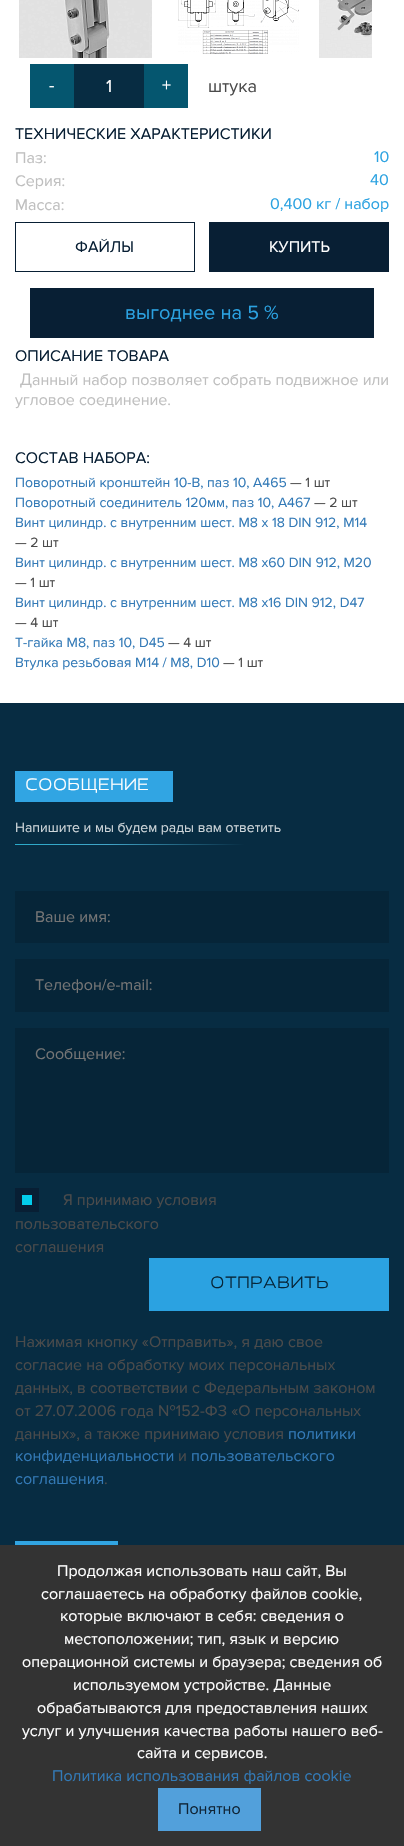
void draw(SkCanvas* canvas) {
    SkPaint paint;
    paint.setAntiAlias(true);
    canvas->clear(0xFFFFFFFF);
    canvas->drawImageRect(SkImages::DeferredFromEncodedData(SkData::MakeFromFileName("img1.png")), SkRect::MakeXYWH(19, 0, 133, 58), SkSamplingOptions());
    canvas->drawImageRect(SkImages::DeferredFromEncodedData(SkData::MakeFromFileName("img2.png")), SkRect::MakeXYWH(178, 0, 121, 54), SkSamplingOptions());
    canvas->drawImageRect(SkImages::DeferredFromEncodedData(SkData::MakeFromFileName("img3.png")), SkRect::MakeXYWH(319, 0, 53, 58), SkSamplingOptions());
    paint.setColor(0xFF979797);
    canvas->drawPath(SkPathBuilder().moveTo(338, -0.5f).cubicTo(338.5f, -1, 339.5f, -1, 340, -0.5f).lineTo(354, 13.5f).cubicTo(354.5f, 14, 354.5f, 15, 354, 15.5f).cubicTo(353.5f, 16.5f, 352.5f, 16.5f, 352, 15.5f).lineTo(338, 1.5f).cubicTo(337.5f, 1, 337.5f, 0, 338, -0.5f).close().detach(), paint);
    canvas->drawPath(SkPathBuilder().moveTo(354, 13.5f).cubicTo(354.5f, 14, 354.5f, 15, 354, 15.5f).lineTo(340, 29.5f).cubicTo(339.5f, 30.5f, 338.5f, 30.5f, 338, 29.5f).cubicTo(337.5f, 29, 337.5f, 28, 338, 27.5f).lineTo(352, 13.5f).cubicTo(352.5f, 13, 353.5f, 13, 354, 13.5f).close().detach(), paint);
    paint.setColor(0xFF05566F);
    canvas->drawRect(SkRect::MakeXYWH(30, 64, 44, 44), paint);
    SkFont font1(fontMgr->matchFamilyStyle("Proxima Nova", SkFontStyle::Normal()), 18);
    font1.setSubpixel(true);
    paint.setColor(0xFFFFFFFF);
    canvas->drawString("-", 49, 91, font1, paint);
    paint.setColor(0xFF072C42);
    canvas->drawRect(SkRect::MakeXYWH(74, 64, 70, 44), paint);
    paint.setColor(0xFFFFFFFF);
    canvas->drawString("1", 106, 92, font1, paint);
    paint.setColor(0xFF05566F);
    canvas->drawRect(SkRect::MakeXYWH(144, 64, 44, 44), paint);
    paint.setColor(0xFFFFFFFF);
    canvas->drawString("+", 162, 91, font1, paint);
    paint.setColor(0xFF4B4B4B);
    canvas->drawString("штука", 208, 92, font1, paint);
    SkFont font2(fontMgr->matchFamilyStyle("Proxima Nova", SkFontStyle::Normal()), 16);
    font2.setSubpixel(true);
    paint.setColor(0xFF081F34);
    canvas->drawString("ТЕХНИЧЕСКИЕ ХАРАКТЕРИСТИКИ", 15, 139, font2, paint);
    paint.setColor(0xFFBFBFBF);
    canvas->drawString("Паз:", 15, 163, font2, paint);
    paint.setColor(0xFF2BA2E1);
    canvas->drawString("10", 374, 162, font2, paint);
    paint.setColor(0xFFBFBFBF);
    canvas->drawString("Серия:", 15, 186, font2, paint);
    paint.setColor(0xFF2BA2E1);
    canvas->drawString("40", 370, 185, font2, paint);
    paint.setColor(0xFFBFBFBF);
    canvas->drawString("Масса:", 15, 210, font2, paint);
    paint.setColor(0xFF2BA2E1);
    canvas->drawString("0,400 кг / набор", 270, 209, font2, paint);
    paint.setStyle(SkPaint::kStroke_Style);
    paint.setStrokeWidth(1);
    paint.setColor(0xFF081F34);
    canvas->drawRect(SkRect::MakeXYWH(15.5f, 222.5f, 179, 49), paint);
    paint.setStyle(SkPaint::kFill_Style);
    canvas->drawString("ФАЙЛЫ", 75, 252, font2, paint);
    canvas->drawRect(SkRect::MakeXYWH(209, 222, 180, 50), paint);
    paint.setColor(0xFFFFFFFF);
    canvas->drawString("КУПИТЬ", 269, 252, font2, paint);
    paint.setColor(0xFF081F34);
    canvas->drawRect(SkRect::MakeXYWH(30, 288, 344, 50), paint);
    SkFont font3(fontMgr->matchFamilyStyle("Proxima Nova", SkFontStyle::Normal()), 20);
    font3.setSubpixel(true);
    paint.setColor(0xFF2BA2E1);
    canvas->drawString("выгоднее на 5 %", 125, 319, font3, paint);
    paint.setColor(0xFF081F34);
    canvas->drawString("ОПИСАНИЕ ТОВАРА", 15, 361, font2, paint);
    SkFont font4(fontMgr->matchFamilyStyle("Noto Sans", SkFontStyle::Normal()), 16);
    font4.setSubpixel(true);
    paint.setColor(0xFFBFBFBF);
    canvas->drawString("Д", 20, 385, font4, paint);
    canvas->drawString("анный набор позволяет собрать подвижное или", 32, 385, font2, paint);
    canvas->drawString("угловое соединение.", 15, 405, font2, paint);
    paint.setColor(0xFF081F34);
    canvas->drawString("СОСТАВ НАБОРА:", 15, 463, font2, paint);
    SkFont font5(fontMgr->matchFamilyStyle("Proxima Nova", SkFontStyle::Normal()), 14);
    font5.setSubpixel(true);
    paint.setColor(0xFF337AB7);
    canvas->drawString("Поворотный кронштейн 10-B, паз 10, A465", 15, 487, font5, paint);
    paint.setColor(0xFF4B4B4B);
    canvas->drawString("— 1 шт", 290, 487, font5, paint);
    paint.setColor(0xFF337AB7);
    canvas->drawString("Поворотный соединитель 120мм, паз 10, A467", 15, 507, font5, paint);
    paint.setColor(0xFF4B4B4B);
    canvas->drawString("— 2 шт", 314, 507, font5, paint);
    paint.setColor(0xFF337AB7);
    canvas->drawString("Винт цилиндр. с внутренним шест. М8 х 18 DIN 912, M14", 15, 527, font5, paint);
    paint.setColor(0xFF4B4B4B);
    canvas->drawString("— 2 шт", 15, 547, font5, paint);
    paint.setColor(0xFF337AB7);
    canvas->drawString("Винт цилиндр. с внутренним шест. М8 х60 DIN 912, M20", 15, 567, font5, paint);
    paint.setColor(0xFF4B4B4B);
    canvas->drawString("— 1 шт", 15, 587, font5, paint);
    paint.setColor(0xFF337AB7);
    canvas->drawString("Винт цилиндр. с внутренним шест. М8 х16 DIN 912, D47", 15, 607, font5, paint);
    paint.setColor(0xFF4B4B4B);
    canvas->drawString("— 4 шт", 15, 627, font5, paint);
    paint.setColor(0xFF337AB7);
    canvas->drawString("Т-гайка М8, паз 10, D45", 15, 647, font5, paint);
    paint.setColor(0xFF4B4B4B);
    canvas->drawString("— 4 шт", 168, 647, font5, paint);
    paint.setColor(0xFF337AB7);
    canvas->drawString("Втулка резьбовая М14 / М8, D10", 15, 667, font5, paint);
    paint.setColor(0xFF4B4B4B);
    canvas->drawString("— 1 шт", 223, 667, font5, paint);
    paint.setColor(0xFF072C42);
    canvas->drawRect(SkRect::MakeXYWH(0, 703, 404, 842), paint);
    paint.setColor(0xFF31A5E3);
    canvas->drawRect(SkRect::MakeXYWH(15, 771, 158, 31), paint);
    SkFont font6(fontMgr->matchFamilyStyle("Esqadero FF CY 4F", SkFontStyle::Normal()), 16);
    font6.setSubpixel(true);
    paint.setColor(0xFFFFFFFF);
    canvas->drawString("СООБЩЕНИЕ", 25, 790, font6, paint);
    paint.setColor(0xFFCDD5D9);
    canvas->drawString("Напишите и мы будем рады вам ответить", 15, 832, font5, paint);
    {
        const SkColor colors[] = {0xFF2AAAC9, 0xFF42A5C8, 0xFF072C42};
        const float stops[] = {0, 0.4f, 1};
        const SkPoint ends[] = {{15, 845}, {245, 845}};
        paint.setShader(SkGradientShader::MakeLinear(ends, colors, stops, 3, SkTileMode::kClamp));
        paint.setAlpha(255);
    }
    canvas->drawRect(SkRect::MakeXYWH(15, 844, 230, 1), paint);
    paint.setShader(nullptr);
    paint.setColor(0xFF062538);
    canvas->drawRect(SkRect::MakeXYWH(15, 891, 374, 52), paint);
    paint.setColor(0xFF757575);
    canvas->drawString("Ваше имя:", 35, 922, font2, paint);
    paint.setColor(0xFF062538);
    canvas->drawRect(SkRect::MakeXYWH(15, 959, 374, 53), paint);
    paint.setColor(0xFF757575);
    canvas->drawString("Телефон/e-mail:", 35, 990, font2, paint);
    paint.setColor(0xFF062538);
    canvas->drawRect(SkRect::MakeXYWH(15, 1028, 374, 145), paint);
    paint.setColor(0xFF757575);
    canvas->drawString("Сообщение:", 35, 1059, font2, paint);
    paint.setColor(0xFF081F34);
    canvas->drawRect(SkRect::MakeXYWH(15, 1188, 24, 24), paint);
    paint.setColor(0xFF03CDEC);
    canvas->drawRect(SkRect::MakeXYWH(22, 1195, 10, 10), paint);
    paint.setColor(0xFF4B4B4B);
    canvas->drawString("Я принимаю условия", 63, 1205, font2, paint);
    canvas->drawString("пользовательского", 15, 1229, font2, paint);
    canvas->drawString("соглашения", 15, 1252, font2, paint);
    paint.setColor(0xFF2BA2E1);
    canvas->drawRect(SkRect::MakeXYWH(149, 1258, 240, 53), paint);
    paint.setColor(0xFF062538);
    canvas->drawString("ОТПРАВИТЬ", 210, 1288, font6, paint);
    paint.setColor(0xFF4B4B4B);
    canvas->drawString("Нажимая кнопку «Отправить», я даю свое", 15, 1347, font2, paint);
    canvas->drawString("согласие на обработку моих персональных", 15, 1370, font2, paint);
    canvas->drawString("данных, в соответствии с Федеральным законом", 15, 1393, font2, paint);
    canvas->drawString("от 27.07.2006 года №152-ФЗ «О персональных", 15, 1416, font2, paint);
    canvas->drawString("данных», а также принимаю условия", 15, 1439, font2, paint);
    paint.setColor(0xFF337AB7);
    canvas->drawString("политики", 288, 1439, font2, paint);
    canvas->drawString("конфиденциальности", 15, 1461, font2, paint);
    paint.setColor(0xFF4B4B4B);
    canvas->drawString("и", 178, 1461, font2, paint);
    paint.setColor(0xFF337AB7);
    canvas->drawString("пользовательского", 191, 1461, font2, paint);
    canvas->drawString("соглашения", 15, 1484, font2, paint);
    paint.setColor(0xFF4B4B4B);
    canvas->drawString(".", 104, 1484, font2, paint);
    paint.setColor(0xFF31A5E3);
    canvas->drawRect(SkRect::MakeXYWH(15, 1541, 103, 4), paint);
    paint.setColor(0xFF333333);
    canvas->drawRect(SkRect::MakeXYWH(0, 1545, 404, 301), paint);
    paint.setColor(0xFFFFFFFF);
    canvas->drawString("Продолжая использовать наш сайт, Вы", 57, 1576, font2, paint);
    canvas->drawString("соглашаетесь на обработку файлов cookie,", 41, 1599, font2, paint);
    canvas->drawString("которые включают в себя: сведения о", 60, 1621, font2, paint);
    canvas->drawString("местоположении; тип, язык и версию", 64, 1644, font2, paint);
    canvas->drawString("операционной системы и браузера; сведения об", 22, 1667, font2, paint);
    canvas->drawString("используемом устройстве. Данные", 73, 1690, font2, paint);
    canvas->drawString("обрабатываются для предоставления наших", 37, 1713, font2, paint);
    canvas->drawString("услуг и улучшения качества работы нашего веб-", 22, 1736, font2, paint);
    canvas->drawString("сайта и сервисов.", 137, 1758, font2, paint);
    paint.setColor(0xFF337AB7);
    canvas->drawString("Политика использования файлов cookie", 52, 1781, font2, paint);
    paint.setColor(0xFF52A0DB);
    canvas->drawRect(SkRect::MakeXYWH(158, 1788, 103, 43), paint);
    paint.setColor(0xFF0F2436);
    canvas->drawString("Понятно", 178, 1814, font2, paint);
}
